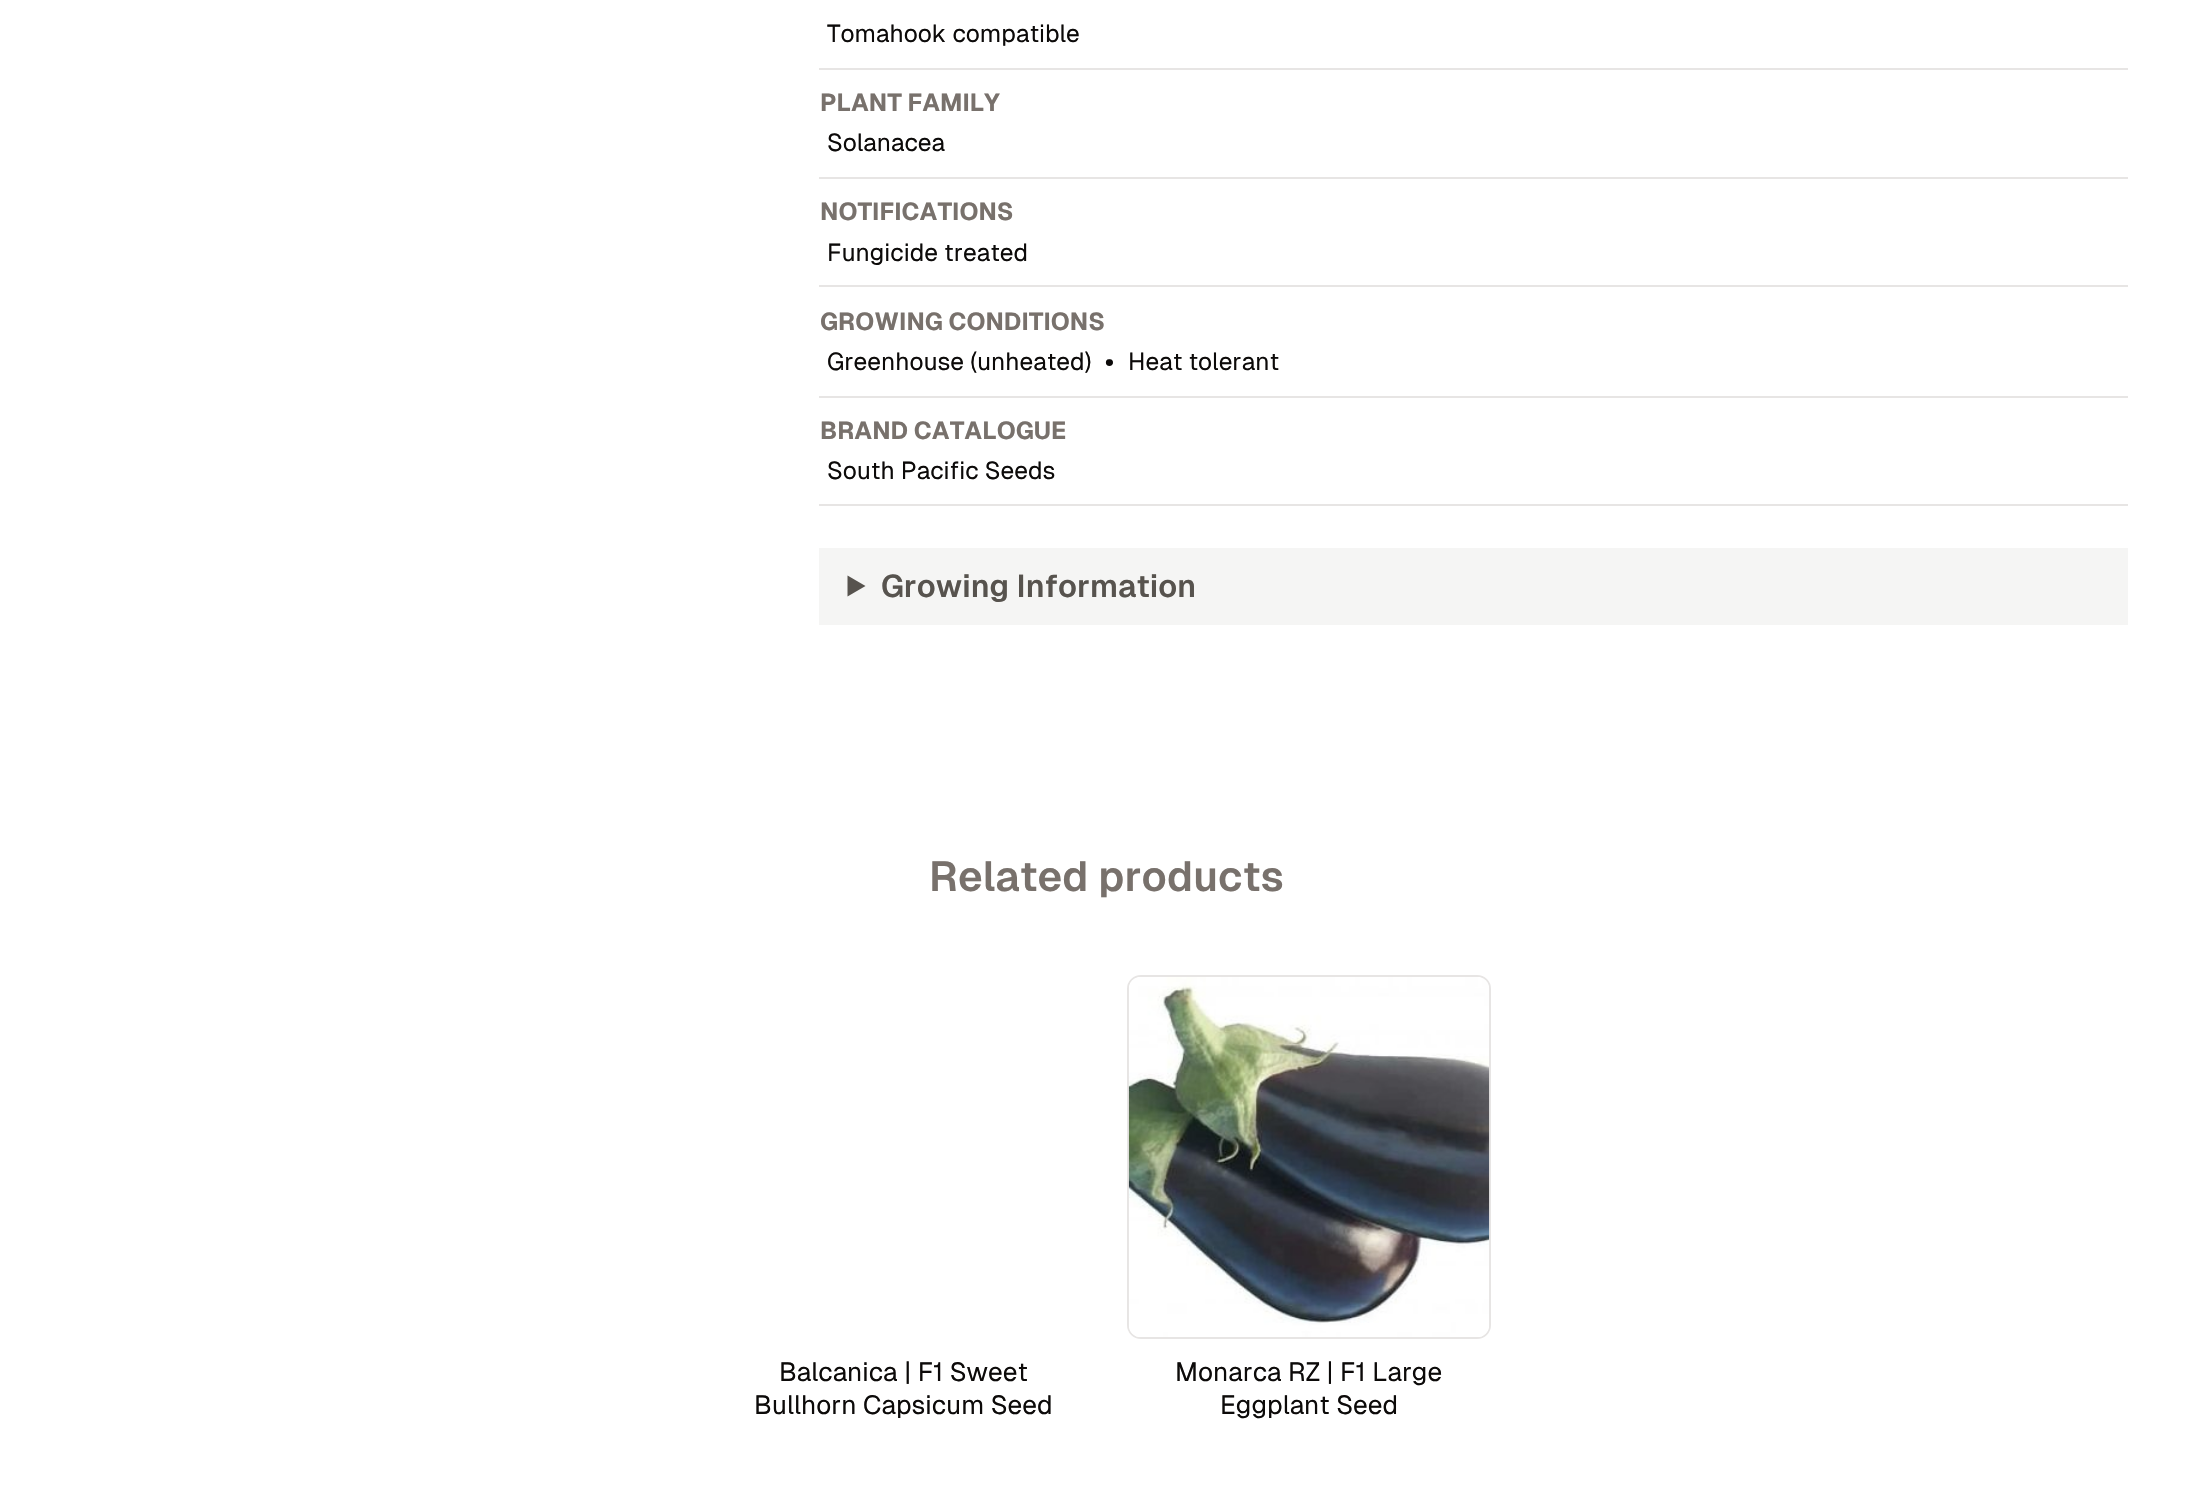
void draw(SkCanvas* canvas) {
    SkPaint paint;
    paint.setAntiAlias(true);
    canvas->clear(0xFFFFFFFF);
    paint.setColor(0xFFE7E5E4);
    canvas->drawRect(SkRect::MakeXYWH(819, 68, 1309, 2), paint);
    SkFont font1(fontMgr->matchFamilyStyle("Geist", SkFontStyle::Normal()), 24.5f);
    font1.setSubpixel(true);
    paint.setColor(0xFF0C0A09);
    canvas->drawString("Tomahook compatible", 827, 42, font1, paint);
    paint.setColor(0xFFE7E5E4);
    canvas->drawRect(SkRect::MakeXYWH(819, 177, 1309, 2), paint);
    SkFont font2(fontMgr->matchFamilyStyle("Geist", SkFontStyle::Bold()), 24.5f);
    font2.setSubpixel(true);
    paint.setColor(0xFF78716C);
    canvas->drawString("PLANT FAMILY", 820, 111, font2, paint);
    paint.setColor(0xFF0C0A09);
    canvas->drawString("Solanacea", 827, 151, font1, paint);
    paint.setColor(0xFFE7E5E4);
    canvas->drawRect(SkRect::MakeXYWH(819, 285, 1309, 2), paint);
    paint.setColor(0xFF78716C);
    canvas->drawString("NOTIFICATIONS", 820, 220, font2, paint);
    paint.setColor(0xFF0C0A09);
    canvas->drawString("Fungicide treated", 827, 261, font1, paint);
    paint.setColor(0xFFE7E5E4);
    canvas->drawRect(SkRect::MakeXYWH(819, 396, 1309, 2), paint);
    paint.setColor(0xFF78716C);
    canvas->drawString("GROWING CONDITIONS", 820, 330, font2, paint);
    paint.setColor(0xFF0C0A09);
    canvas->drawString("Greenhouse (unheated)", 827, 370, font1, paint);
    canvas->drawString("•", 1105, 370, font2, paint);
    canvas->drawString("Heat tolerant", 1128, 370, font1, paint);
    paint.setColor(0xFFE7E5E4);
    canvas->drawRect(SkRect::MakeXYWH(819, 504, 1309, 2), paint);
    paint.setColor(0xFF78716C);
    canvas->drawString("BRAND CATALOGUE", 820, 439, font2, paint);
    paint.setColor(0xFF0C0A09);
    canvas->drawString("South Pacific Seeds", 827, 479, font1, paint);
    paint.setColor(0xFFF5F5F4);
    canvas->drawRect(SkRect::MakeXYWH(819, 548, 1309, 77), paint);
    paint.setColor(0xFF57534E);
    canvas->drawPath(SkPathBuilder().moveTo(847.5f, 575.5f).lineTo(865.5f, 586).lineTo(847.5f, 596.5f).close().detach(), paint);
    SkFont font3(fontMgr->matchFamilyStyle("Geist", SkFontStyle(600, SkFontStyle::kNormal_Width, SkFontStyle::kUpright_Slant)), 31.5f);
    font3.setSubpixel(true);
    canvas->drawString("Growing Information", 881, 597, font3, paint);
    SkFont font4(fontMgr->matchFamilyStyle("Geist", SkFontStyle(600, SkFontStyle::kNormal_Width, SkFontStyle::kUpright_Slant)), 42);
    font4.setSubpixel(true);
    paint.setColor(0xFF78716C);
    canvas->drawString("Related products", 929, 891, font4, paint);
    SkFont font5(fontMgr->matchFamilyStyle("Geist", SkFontStyle::Normal()), 26.25f);
    font5.setSubpixel(true);
    paint.setColor(0xFF0C0A09);
    canvas->drawString("Balcanica | F1 Sweet", 779, 1381, font5, paint);
    canvas->drawString("Bullhorn Capsicum Seed", 754, 1414, font5, paint);
    paint.setStyle(SkPaint::kStroke_Style);
    paint.setStrokeWidth(2);
    paint.setColor(0xFFE7E5E4);
    canvas->drawRoundRect(SkRect::MakeXYWH(1128, 976, 362, 362), 13, 13, paint);
    canvas->drawImageRect(SkImages::DeferredFromEncodedData(SkData::MakeFromFileName("img1.png")), SkRect::MakeXYWH(1128, 977, 362, 360), SkSamplingOptions());
    paint.setStyle(SkPaint::kFill_Style);
    paint.setColor(0xFF0C0A09);
    canvas->drawString("Monarca RZ | F1 Large", 1175, 1381, font5, paint);
    canvas->drawString("Eggplant Seed", 1220, 1414, font5, paint);
}
